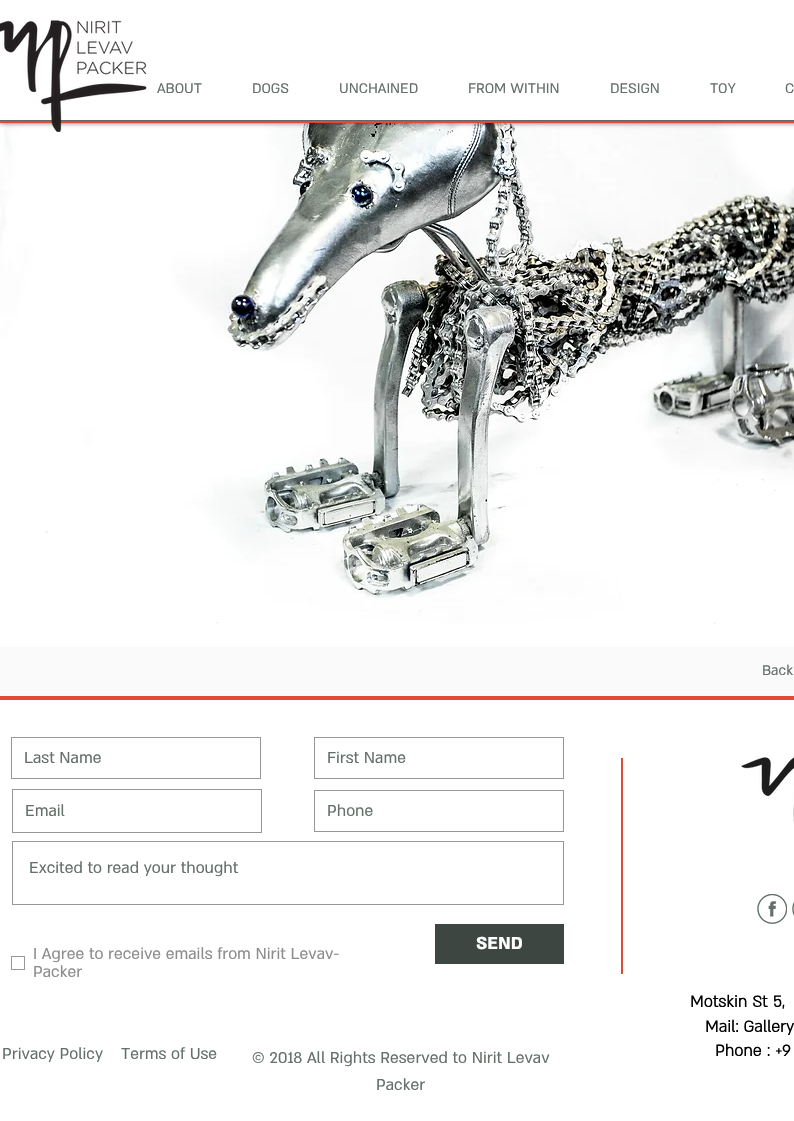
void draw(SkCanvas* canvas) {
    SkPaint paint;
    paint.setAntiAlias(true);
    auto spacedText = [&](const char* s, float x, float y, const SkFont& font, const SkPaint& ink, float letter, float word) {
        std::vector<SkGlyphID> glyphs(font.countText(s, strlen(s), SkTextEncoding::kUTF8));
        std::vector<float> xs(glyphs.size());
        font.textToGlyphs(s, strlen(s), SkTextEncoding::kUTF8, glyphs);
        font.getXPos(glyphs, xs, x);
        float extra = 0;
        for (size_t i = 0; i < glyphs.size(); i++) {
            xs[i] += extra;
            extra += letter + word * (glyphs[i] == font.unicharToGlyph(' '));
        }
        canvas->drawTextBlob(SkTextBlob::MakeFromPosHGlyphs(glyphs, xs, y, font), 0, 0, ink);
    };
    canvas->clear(0xFFFFFFFF);
    canvas->drawImageRect(SkImages::DeferredFromEncodedData(SkData::MakeFromFileName("img2.png")), SkRect::MakeXYWH(0, 123, 794, 501), SkSamplingOptions());
    paint.setColor(0x99000000);
    paint.setMaskFilter(SkMaskFilter::MakeBlur(kNormal_SkBlurStyle, 2.5f));
    canvas->drawRect(SkRect::MakeXYWH(0, 0, 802, 123), paint);
    paint.setMaskFilter(nullptr);
    paint.setColor(0xFFFFFFFF);
    canvas->drawRect(SkRect::MakeXYWH(0, 0, 794, 120), paint);
    paint.setColor(0xFF666666);
    canvas->drawRect(SkRect::MakeXYWH(0, 120, 794, 1), paint);
    paint.setColor(0xFFDE4C33);
    canvas->drawRect(SkRect::MakeXYWH(0, 121, 794, 2), paint);
    canvas->drawImageRect(SkImages::DeferredFromEncodedData(SkData::MakeFromFileName("img1.png")), SkRect::MakeXYWH(0, 20, 147, 112), SkSamplingOptions());
    SkFont font1(fontMgr->matchFamilyStyle("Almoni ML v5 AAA", SkFontStyle::Normal()), 16);
    font1.setSubpixel(true);
    paint.setColor(0xFF65706A);
    canvas->drawString("ABOUT", 157, 93, font1, paint);
    canvas->drawString("DOGS", 252, 93, font1, paint);
    canvas->drawString("UNCHAINED", 339, 93, font1, paint);
    canvas->drawString("FROM WITHIN", 468, 93, font1, paint);
    canvas->drawString("DESIGN", 610, 93, font1, paint);
    canvas->drawString("TOY", 710, 93, font1, paint);
    canvas->drawString("C", 785, 93, font1, paint);
    paint.setColor(0xFFFAFAFA);
    canvas->drawRect(SkRect::MakeXYWH(0, 647, 794, 48), paint);
    paint.setColor(0xFF65706A);
    canvas->drawString("Back", 762, 675, font1, paint);
    paint.setColor(0xFFDE4C33);
    canvas->drawRect(SkRect::MakeXYWH(0, 696, 794, 4), paint);
    paint.setStyle(SkPaint::kStroke_Style);
    paint.setStrokeWidth(1);
    paint.setColor(0xFF949997);
    canvas->drawRect(SkRect::MakeXYWH(11.5f, 737.5f, 249, 41), paint);
    SkFont font2(fontMgr->matchFamilyStyle("Almoni ML v5 AAA", SkFontStyle::Normal()), 18);
    font2.setSubpixel(true);
    paint.setStyle(SkPaint::kFill_Style);
    paint.setColor(0xFF65706A);
    canvas->drawString("Last Name", 24, 763, font2, paint);
    paint.setStyle(SkPaint::kStroke_Style);
    paint.setColor(0xFF949997);
    canvas->drawRect(SkRect::MakeXYWH(314.5f, 737.5f, 249, 41), paint);
    paint.setStyle(SkPaint::kFill_Style);
    paint.setColor(0xFF65706A);
    canvas->drawString("First Name", 327, 763, font2, paint);
    paint.setStyle(SkPaint::kStroke_Style);
    paint.setColor(0xFF949997);
    canvas->drawRect(SkRect::MakeXYWH(12.5f, 789.5f, 249, 43), paint);
    paint.setStyle(SkPaint::kFill_Style);
    paint.setColor(0xFF65706A);
    canvas->drawString("Email", 25, 816, font2, paint);
    paint.setStyle(SkPaint::kStroke_Style);
    paint.setColor(0xFF949997);
    canvas->drawRect(SkRect::MakeXYWH(314.5f, 790.5f, 249, 41), paint);
    paint.setStyle(SkPaint::kFill_Style);
    paint.setColor(0xFF65706A);
    canvas->drawString("Phone", 327, 816, font2, paint);
    paint.setStyle(SkPaint::kStroke_Style);
    paint.setColor(0xFF949997);
    canvas->drawRect(SkRect::MakeXYWH(12.5f, 841.5f, 551, 63), paint);
    paint.setStyle(SkPaint::kFill_Style);
    paint.setColor(0xFF65706A);
    canvas->drawString("Excited to read your thought", 29, 873, font2, paint);
    paint.setColor(0xFF3D4641);
    canvas->drawRect(SkRect::MakeXYWH(435, 924, 129, 40), paint);
    SkFont font3(fontMgr->matchFamilyStyle("Almoni ML v5 AAA", SkFontStyle::Bold()), 20);
    font3.setSubpixel(true);
    paint.setColor(0xFFFFFFFF);
    canvas->drawString("SEND", 476, 949, font3, paint);
    paint.setStyle(SkPaint::kStroke_Style);
    paint.setColor(0xFF949997);
    canvas->drawRect(SkRect::MakeXYWH(11.5f, 956.5f, 13, 13), paint);
    paint.setStyle(SkPaint::kFill_Style);
    paint.setColor(0xFF8D8D8D);
    canvas->drawString("I Agree to receive emails from Nirit Levav-", 33, 959, font2, paint);
    canvas->drawString("Packer", 33, 977, font2, paint);
    paint.setColor(0xFFDE4C33);
    canvas->drawRect(SkRect::MakeXYWH(621, 758, 2, 216), paint);
    canvas->drawImageRect(SkImages::DeferredFromEncodedData(SkData::MakeFromFileName("img3.png")), SkRect::MakeXYWH(741, 757, 53, 65), SkSamplingOptions());
    canvas->drawImageRect(SkImages::DeferredFromEncodedData(SkData::MakeFromFileName("img4.png")), SkRect::MakeXYWH(757, 894, 30, 30), SkSamplingOptions());
    canvas->drawImageRect(SkImages::DeferredFromEncodedData(SkData::MakeFromFileName("img5.png")), SkRect::MakeXYWH(792, 902, 2, 14), SkSamplingOptions());
    SkFont font4(fontMgr->matchFamilyStyle("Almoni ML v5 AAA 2", SkFontStyle::Bold()), 18);
    font4.setSubpixel(true);
    paint.setColor(0xFF000000);
    spacedText("Motskin St 5,", 690, 1007, font4, paint, 0.25f, 0);
    spacedText("Mail: Gallery", 705, 1032, font4, paint, 0.25f, 0);
    spacedText("Phone : +9", 715, 1056, font4, paint, 0.25f, 0);
    paint.setColor(0xFF65706A);
    canvas->drawString("Privacy Policy", 2, 1059, font2, paint);
    canvas->drawString("Terms of Use", 121, 1059, font2, paint);
    canvas->drawString("© 2018 All Rights Reserved to Nirit Levav", 252, 1063, font2, paint);
    canvas->drawString("Packer", 376, 1090, font2, paint);
}
